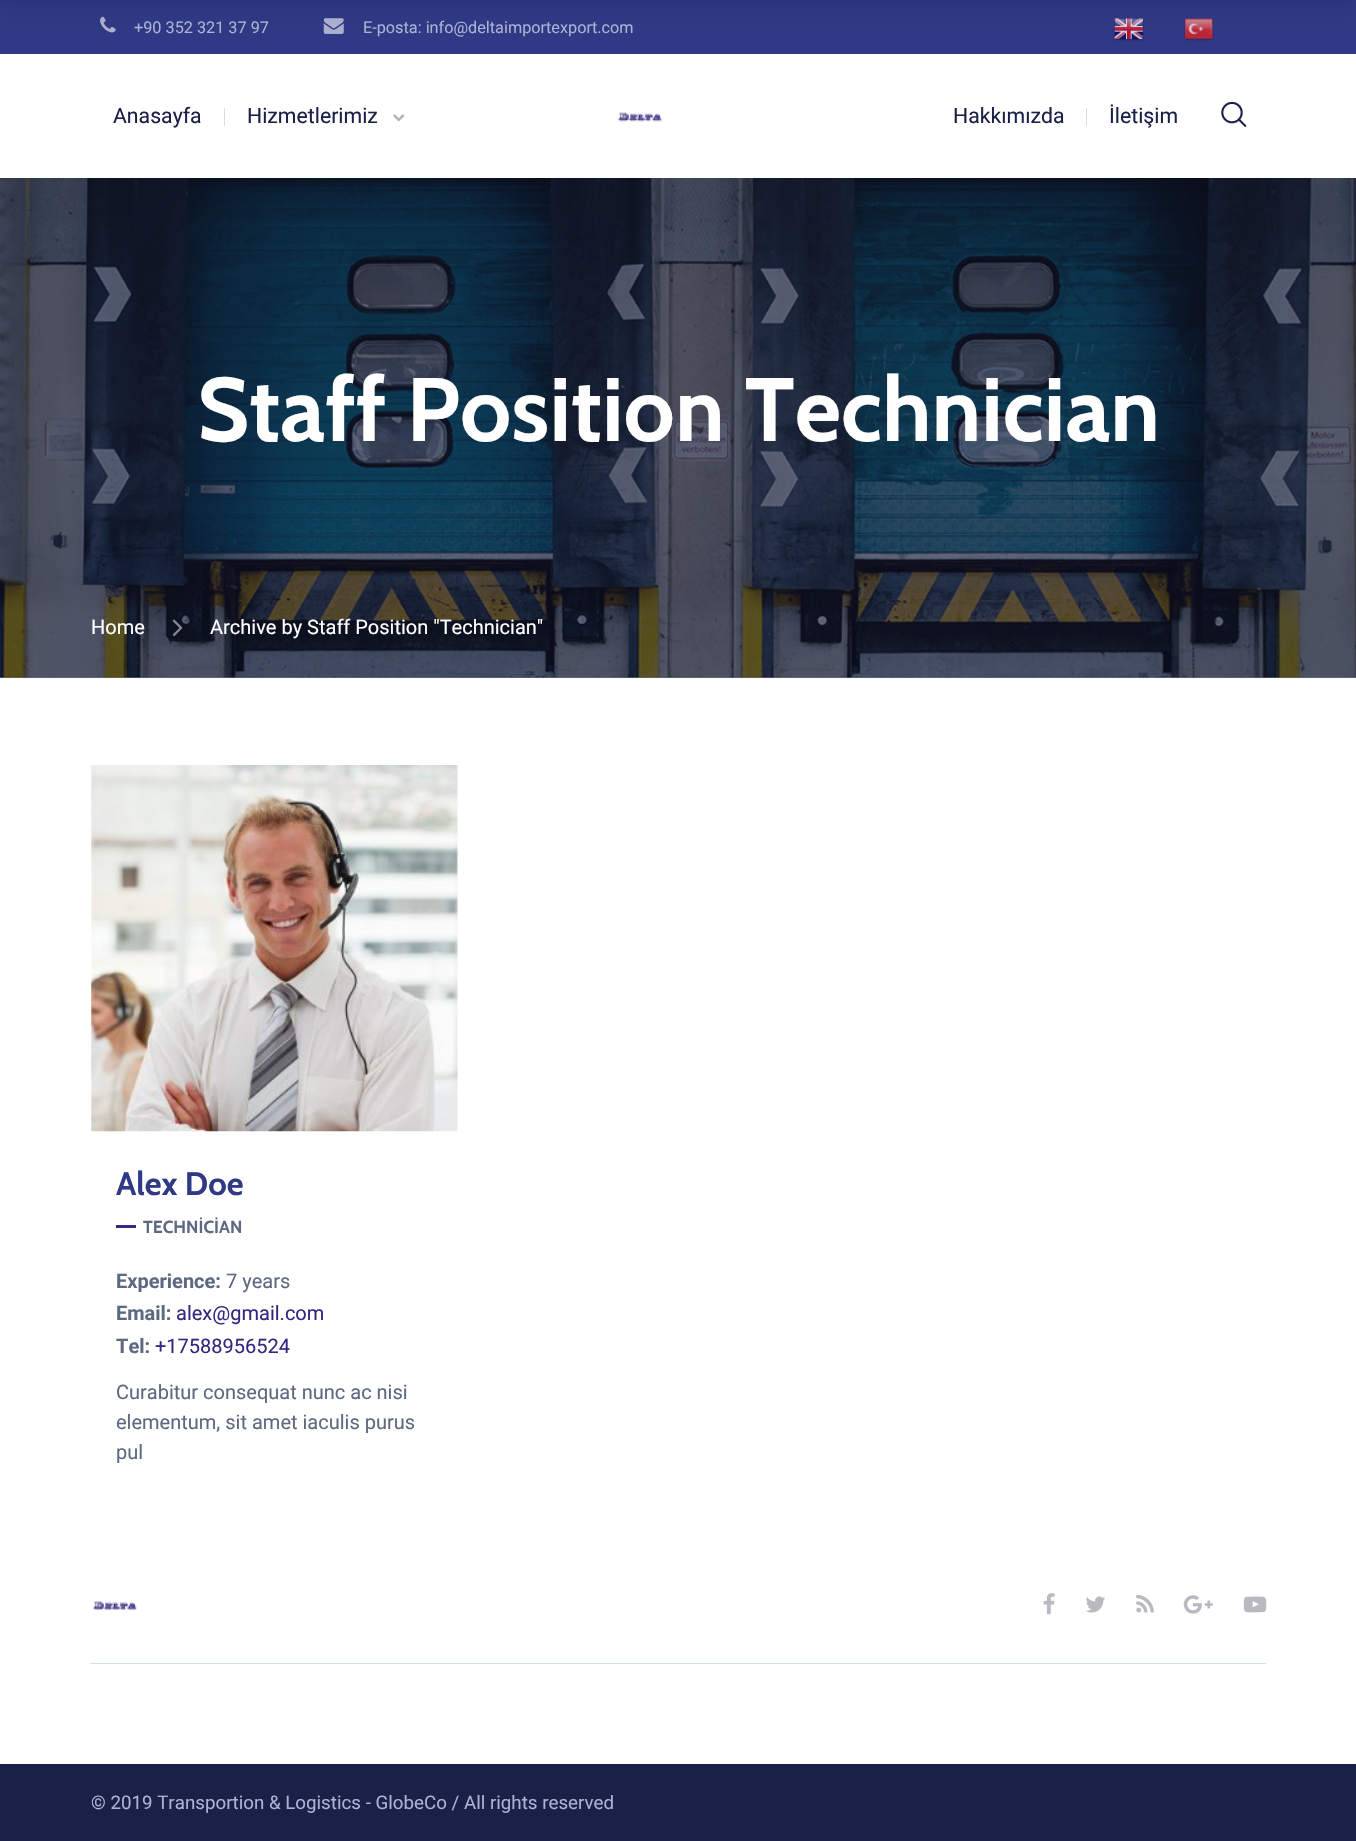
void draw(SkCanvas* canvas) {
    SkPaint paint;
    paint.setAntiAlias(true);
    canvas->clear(0xFFFFFFFF);
    paint.setColor(0xFF707180);
    canvas->drawRect(SkRect::MakeXYWH(0, 677, 1356, 1), paint);
    paint.setColor(0xFF2F3985);
    canvas->drawRect(SkRect::MakeXYWH(0, 0, 1356, 54), paint);
    canvas->drawImageRect(SkImages::DeferredFromEncodedData(SkData::MakeFromFileName("img3.png")), SkRect::MakeXYWH(100, 16, 16, 17), SkSamplingOptions());
    canvas->drawImageRect(SkImages::DeferredFromEncodedData(SkData::MakeFromFileName("img4.png")), SkRect::MakeXYWH(323, 18, 21, 16), SkSamplingOptions());
    paint.setColor(0x33000000);
    paint.setMaskFilter(SkMaskFilter::MakeBlur(kNormal_SkBlurStyle, 12.5f));
    canvas->drawRect(SkRect::MakeXYWH(0, -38, 1356, 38), paint);
    paint.setMaskFilter(nullptr);
    canvas->drawImageRect(SkImages::DeferredFromEncodedData(SkData::MakeFromFileName("img1.png")), SkRect::MakeXYWH(1114, 18, 30, 23), SkSamplingOptions());
    canvas->drawImageRect(SkImages::DeferredFromEncodedData(SkData::MakeFromFileName("img2.png")), SkRect::MakeXYWH(1184, 18, 30, 23), SkSamplingOptions());
    SkFont font1(fontMgr->matchFamilyStyle("Roboto", SkFontStyle::Normal()), 16.25f);
    font1.setSubpixel(true);
    paint.setColor(0xFFADB1D3);
    canvas->drawString("+90 352 321 37 97", 134, 33, font1, paint);
    canvas->drawString("E-posta: info@deltaimportexport.com", 363, 33, font1, paint);
    SkFont font2(fontMgr->matchFamilyStyle("Roboto", SkFontStyle::Normal()), 21.25f);
    font2.setSubpixel(true);
    paint.setColor(0xFF1B2048);
    canvas->drawString("Anasayfa", 113, 123, font2, paint);
    paint.setColor(0xFFDADBE7);
    canvas->drawRect(SkRect::MakeXYWH(224, 108, 1, 18), paint);
    paint.setColor(0xFF1B2048);
    canvas->drawString("Hizmetlerimiz", 247, 123, font2, paint);
    canvas->drawImageRect(SkImages::DeferredFromEncodedData(SkData::MakeFromFileName("img5.png")), SkRect::MakeXYWH(393, 114, 12, 8), SkSamplingOptions());
    canvas->drawImageRect(SkImages::DeferredFromEncodedData(SkData::MakeFromFileName("img6.png")), SkRect::MakeXYWH(617, 112, 45, 10), SkSamplingOptions());
    canvas->drawString("Hakkımızda", 953, 123, font2, paint);
    paint.setColor(0xFFDADBE7);
    canvas->drawRect(SkRect::MakeXYWH(1086, 108, 1, 18), paint);
    paint.setColor(0xFF1B2048);
    canvas->drawString("İletişim", 1109, 123, font2, paint);
    canvas->drawImageRect(SkImages::DeferredFromEncodedData(SkData::MakeFromFileName("img7.png")), SkRect::MakeXYWH(1221, 101, 26, 26), SkSamplingOptions());
    canvas->drawImageRect(SkImages::DeferredFromEncodedData(SkData::MakeFromFileName("img8.png")), SkRect::MakeXYWH(0, 178, 1356, 500), SkSamplingOptions());
    SkFont font3(fontMgr->matchFamilyStyle("Cabin", SkFontStyle::Bold()), 90);
    font3.setSubpixel(true);
    paint.setColor(0xFFFFFFFF);
    canvas->drawString("Staff Position Technician", 197, 441, font3, paint);
    SkFont font4(fontMgr->matchFamilyStyle("Roboto", SkFontStyle::Normal()), 20);
    font4.setSubpixel(true);
    canvas->drawString("Home", 91, 634, font4, paint);
    canvas->drawImageRect(SkImages::DeferredFromEncodedData(SkData::MakeFromFileName("img9.png")), SkRect::MakeXYWH(172, 619, 11, 18), SkSamplingOptions());
    canvas->drawString("Archive by Staff Position \"Technician\"", 210, 634, font4, paint);
    canvas->drawImageRect(SkImages::DeferredFromEncodedData(SkData::MakeFromFileName("img10.png")), SkRect::MakeXYWH(91, 765, 367, 367), SkSamplingOptions());
    SkFont font5(fontMgr->matchFamilyStyle("Cabin", SkFontStyle::Bold()), 32.5f);
    font5.setSubpixel(true);
    paint.setColor(0xFF2F3985);
    canvas->drawString("Alex Doe", 116, 1195, font5, paint);
    paint.setColor(0xFF332982);
    canvas->drawRect(SkRect::MakeXYWH(116, 1225, 20, 3), paint);
    SkFont font6(fontMgr->matchFamilyStyle("Cabin", SkFontStyle::Bold()), 17.5f);
    font6.setSubpixel(true);
    paint.setColor(0xFF5D6881);
    canvas->drawString("TECHNİCİAN", 143, 1233, font6, paint);
    SkFont font7(fontMgr->matchFamilyStyle("Roboto", SkFontStyle::Bold()), 20);
    font7.setSubpixel(true);
    canvas->drawString("Experience:", 116, 1288, font7, paint);
    canvas->drawString("7 years", 226, 1288, font4, paint);
    canvas->drawString("Email:", 116, 1320, font7, paint);
    paint.setColor(0xFF332982);
    canvas->drawString("alex@gmail.com", 176, 1320, font4, paint);
    paint.setColor(0xFF5D6881);
    canvas->drawString("Tel:", 116, 1353, font7, paint);
    paint.setColor(0xFF332982);
    canvas->drawString("+17588956524", 155, 1353, font4, paint);
    paint.setColor(0xFF5D6881);
    canvas->drawString("Curabitur consequat nunc ac nisi", 116, 1399, font4, paint);
    canvas->drawString("elementum, sit amet iaculis purus", 116, 1429, font4, paint);
    canvas->drawString("pul", 116, 1459, font4, paint);
    paint.setColor(0xFFD3E0E4);
    canvas->drawRect(SkRect::MakeXYWH(91, 1663, 1175, 1), paint);
    canvas->drawImageRect(SkImages::DeferredFromEncodedData(SkData::MakeFromFileName("img11.png")), SkRect::MakeXYWH(92, 1601, 45, 9), SkSamplingOptions());
    canvas->drawImageRect(SkImages::DeferredFromEncodedData(SkData::MakeFromFileName("img12.png")), SkRect::MakeXYWH(1043, 1593, 12, 22), SkSamplingOptions());
    canvas->drawImageRect(SkImages::DeferredFromEncodedData(SkData::MakeFromFileName("img13.png")), SkRect::MakeXYWH(1085, 1596, 20, 17), SkSamplingOptions());
    canvas->drawImageRect(SkImages::DeferredFromEncodedData(SkData::MakeFromFileName("img14.png")), SkRect::MakeXYWH(1136, 1594, 18, 19), SkSamplingOptions());
    canvas->drawImageRect(SkImages::DeferredFromEncodedData(SkData::MakeFromFileName("img15.png")), SkRect::MakeXYWH(1183, 1595, 30, 19), SkSamplingOptions());
    canvas->drawImageRect(SkImages::DeferredFromEncodedData(SkData::MakeFromFileName("img16.png")), SkRect::MakeXYWH(1243, 1596, 24, 17), SkSamplingOptions());
    paint.setColor(0xFF1B2048);
    canvas->drawRect(SkRect::MakeXYWH(0, 1764, 1356, 77), paint);
    SkFont font8(fontMgr->matchFamilyStyle("Roboto", SkFontStyle::Normal()), 18.75f);
    font8.setSubpixel(true);
    paint.setColor(0xFFADB1D3);
    canvas->drawString("© 2019 Transportion & Logistics - GlobeCo / All rights reserved", 91, 1809, font8, paint);
}
